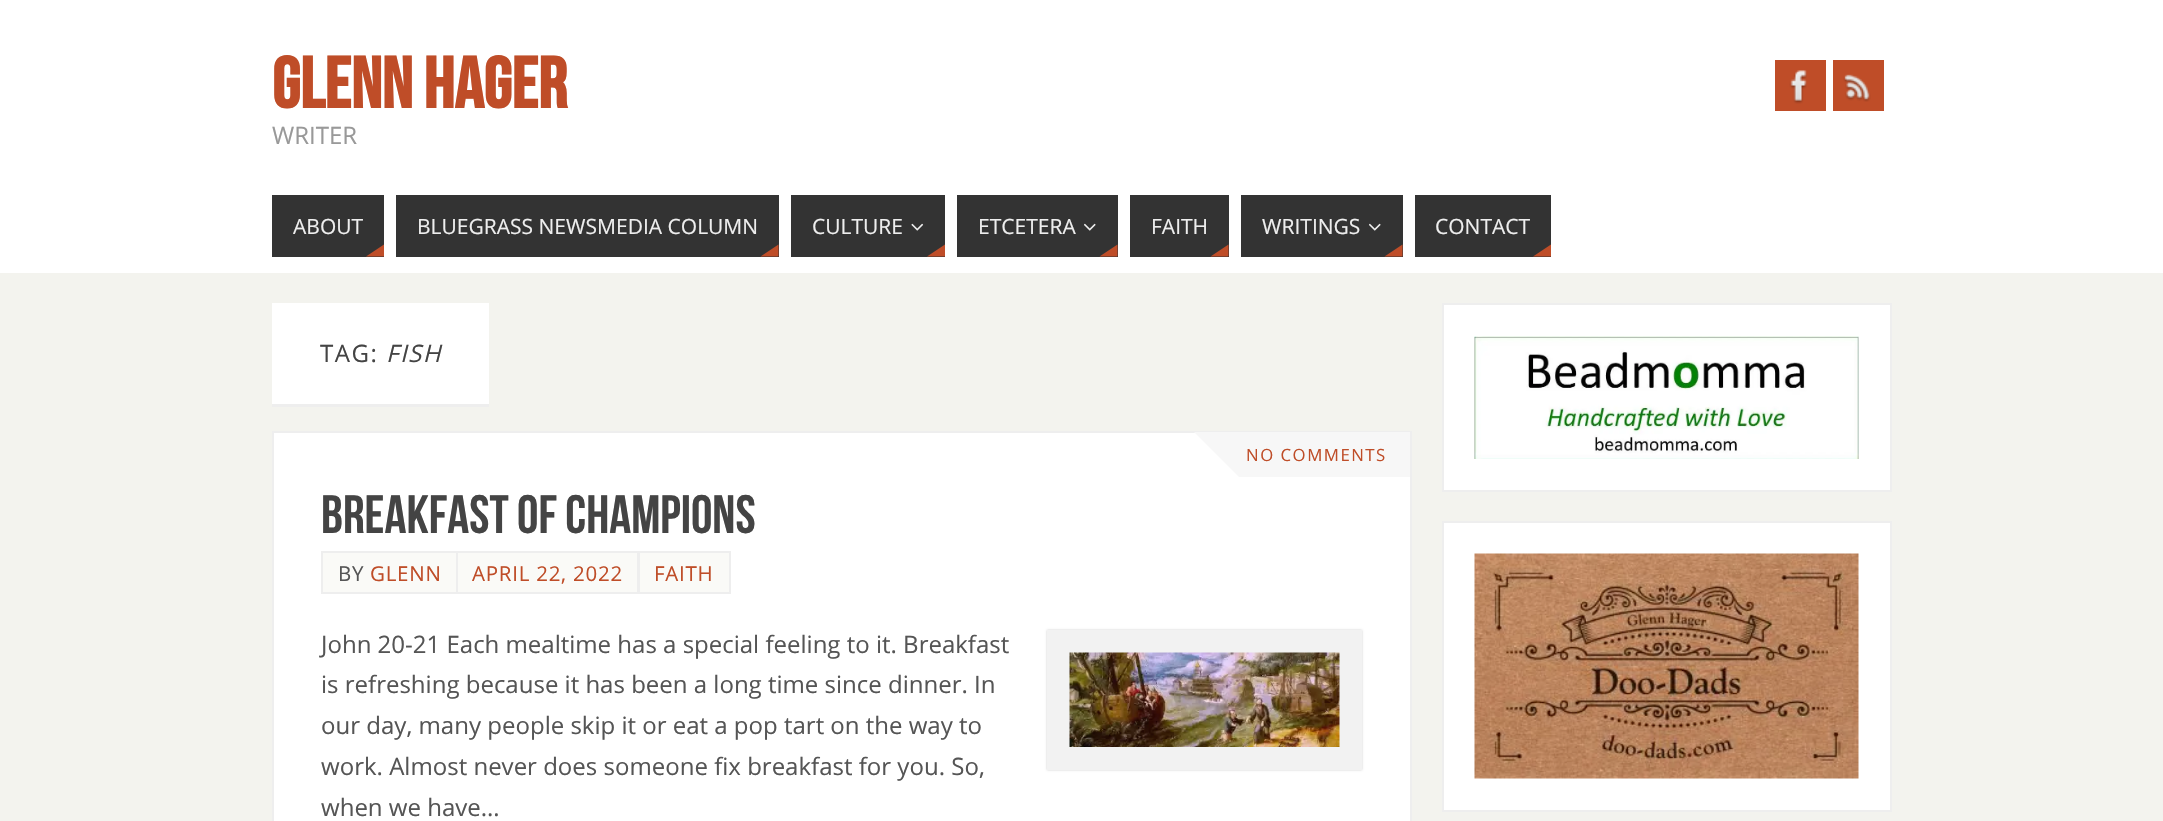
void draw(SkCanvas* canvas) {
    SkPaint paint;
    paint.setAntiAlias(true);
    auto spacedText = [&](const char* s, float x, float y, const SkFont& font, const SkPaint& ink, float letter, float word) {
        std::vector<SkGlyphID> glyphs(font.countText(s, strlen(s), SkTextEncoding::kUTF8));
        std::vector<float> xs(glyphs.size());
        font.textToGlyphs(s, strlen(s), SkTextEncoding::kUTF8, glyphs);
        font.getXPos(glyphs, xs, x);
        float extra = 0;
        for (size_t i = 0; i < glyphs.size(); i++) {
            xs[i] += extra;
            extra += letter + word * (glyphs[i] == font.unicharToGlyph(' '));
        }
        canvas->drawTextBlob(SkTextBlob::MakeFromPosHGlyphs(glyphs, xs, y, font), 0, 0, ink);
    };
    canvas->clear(0xFFF3F3EE);
    paint.setColor(0xFFFFFFFF);
    canvas->drawRect(SkRect::MakeXYWH(0, 0, 2163, 273), paint);
    SkFont font1(fontMgr->matchFamilyStyle("Bebas Neue", SkFontStyle::Bold()), 72);
    font1.setSubpixel(true);
    paint.setColor(0xFFBF4D28);
    canvas->drawString("GLENN HAGER", 272, 108, font1, paint);
    SkFont font2(fontMgr->matchFamilyStyle("Open Sans", SkFontStyle::Normal()), 24);
    font2.setSubpixel(true);
    paint.setColor(0xFF999999);
    canvas->drawString("WRITER", 272, 144, font2, paint);
    paint.setColor(0xFFBF4D28);
    canvas->drawRect(SkRect::MakeXYWH(1775, 60, 51, 51), paint);
    canvas->drawImageRect(SkImages::DeferredFromEncodedData(SkData::MakeFromFileName("img1.png")), SkRect::MakeXYWH(1789, 70, 18, 34), SkSamplingOptions());
    canvas->drawRect(SkRect::MakeXYWH(1833, 60, 51, 51), paint);
    canvas->drawImageRect(SkImages::DeferredFromEncodedData(SkData::MakeFromFileName("img2.png")), SkRect::MakeXYWH(1843, 74, 28, 28), SkSamplingOptions());
    paint.setColor(0xFF333333);
    canvas->drawRect(SkRect::MakeXYWH(272, 195, 112, 62), paint);
    SkFont font3(fontMgr->matchFamilyStyle("Open Sans", SkFontStyle::Normal()), 21);
    font3.setSubpixel(true);
    paint.setColor(0xFFEEEEEE);
    canvas->drawString("ABOUT", 293, 234, font3, paint);
    paint.setColor(0xFFBF4D28);
    canvas->drawPath(SkPathBuilder().moveTo(384, 256.5f).lineTo(366, 256.5f).lineTo(384, 244.5f).close().detach(), paint);
    paint.setColor(0xFF333333);
    canvas->drawRect(SkRect::MakeXYWH(396, 195, 383, 62), paint);
    paint.setColor(0xFFEEEEEE);
    canvas->drawString("BLUEGRASS NEWSMEDIA COLUMN", 417, 234, font3, paint);
    paint.setColor(0xFFBF4D28);
    canvas->drawPath(SkPathBuilder().moveTo(778.5f, 256.5f).lineTo(760.5f, 256.5f).lineTo(778.5f, 244.5f).close().detach(), paint);
    paint.setColor(0xFF333333);
    canvas->drawRect(SkRect::MakeXYWH(791, 195, 154, 62), paint);
    paint.setColor(0xFFEEEEEE);
    canvas->drawString("CULTURE", 812, 234, font3, paint);
    canvas->drawImageRect(SkImages::DeferredFromEncodedData(SkData::MakeFromFileName("img3.png")), SkRect::MakeXYWH(911, 223, 13, 8), SkSamplingOptions());
    paint.setColor(0xFFBF4D28);
    canvas->drawPath(SkPathBuilder().moveTo(945, 256.5f).lineTo(927, 256.5f).lineTo(945, 244.5f).close().detach(), paint);
    paint.setColor(0xFF333333);
    canvas->drawRect(SkRect::MakeXYWH(957, 195, 161, 62), paint);
    paint.setColor(0xFFEEEEEE);
    canvas->drawString("ETCETERA", 978, 234, font3, paint);
    canvas->drawImageRect(SkImages::DeferredFromEncodedData(SkData::MakeFromFileName("img4.png")), SkRect::MakeXYWH(1084, 223, 12, 8), SkSamplingOptions());
    paint.setColor(0xFFBF4D28);
    canvas->drawPath(SkPathBuilder().moveTo(1117.5f, 256.5f).lineTo(1099.5f, 256.5f).lineTo(1117.5f, 244.5f).close().detach(), paint);
    paint.setColor(0xFF333333);
    canvas->drawRect(SkRect::MakeXYWH(1130, 195, 99, 62), paint);
    paint.setColor(0xFFEEEEEE);
    canvas->drawString("FAITH", 1151, 234, font3, paint);
    paint.setColor(0xFFBF4D28);
    canvas->drawPath(SkPathBuilder().moveTo(1228.5f, 256.5f).lineTo(1210.5f, 256.5f).lineTo(1228.5f, 244.5f).close().detach(), paint);
    paint.setColor(0xFF333333);
    canvas->drawRect(SkRect::MakeXYWH(1241, 195, 162, 62), paint);
    paint.setColor(0xFFEEEEEE);
    canvas->drawString("WRITINGS", 1262, 234, font3, paint);
    canvas->drawImageRect(SkImages::DeferredFromEncodedData(SkData::MakeFromFileName("img4.png")), SkRect::MakeXYWH(1369, 223, 12, 8), SkSamplingOptions());
    paint.setColor(0xFFBF4D28);
    canvas->drawPath(SkPathBuilder().moveTo(1402.5f, 256.5f).lineTo(1384.5f, 256.5f).lineTo(1402.5f, 244.5f).close().detach(), paint);
    paint.setColor(0xFF333333);
    canvas->drawRect(SkRect::MakeXYWH(1415, 195, 136, 62), paint);
    paint.setColor(0xFFEEEEEE);
    canvas->drawString("CONTACT", 1435, 234, font3, paint);
    paint.setColor(0xFFBF4D28);
    canvas->drawPath(SkPathBuilder().moveTo(1551, 256.5f).lineTo(1533, 256.5f).lineTo(1551, 244.5f).close().detach(), paint);
    paint.setColor(0xFFFFFFFF);
    canvas->drawRect(SkRect::MakeXYWH(272, 303, 217, 101), paint);
    paint.setColor(0xFFEEEEEE);
    canvas->drawRect(SkRect::MakeXYWH(272, 404, 217, 3), paint);
    paint.setColor(0xFF444444);
    spacedText("TAG:", 320, 362, font2, paint, 1.5f, 0);
    SkFont font4(fontMgr->matchFamilyStyle("Open Sans", SkFontStyle::Italic()), 24);
    font4.setSubpixel(true);
    spacedText("FISH", 386, 362, font4, paint, 1.5f, 0);
    paint.setColor(0xFFFFFFFF);
    canvas->drawRect(SkRect::MakeXYWH(273, 432, 1138, 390), paint);
    paint.setStyle(SkPaint::kStroke_Style);
    paint.setStrokeWidth(2);
    paint.setColor(0xFFEEEEEE);
    canvas->drawRect(SkRect::MakeXYWH(273, 432, 1138, 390), paint);
    paint.setStyle(SkPaint::kFill_Style);
    paint.setColor(0xFFF7F7F7);
    canvas->drawRect(SkRect::MakeXYWH(1239, 432, 171, 45), paint);
    canvas->drawPath(SkPathBuilder().moveTo(1194, 432).lineTo(1239, 432).lineTo(1239, 477).close().detach(), paint);
    SkFont font5(fontMgr->matchFamilyStyle("Open Sans", SkFontStyle::Normal()), 16.75f);
    font5.setSubpixel(true);
    paint.setColor(0xFFBF4D28);
    spacedText("NO COMMENTS", 1246, 461, font5, paint, 1.5f, 0);
    SkFont font6(fontMgr->matchFamilyStyle("Bebas Neue", SkFontStyle::Normal()), 54);
    font6.setSubpixel(true);
    paint.setColor(0xFF444444);
    canvas->drawString("Breakfast of Champions", 321, 533, font6, paint);
    paint.setColor(0xFFFAFAF7);
    canvas->drawRect(SkRect::MakeXYWH(322, 552, 135, 41), paint);
    paint.setStyle(SkPaint::kStroke_Style);
    paint.setColor(0xFFEEEEEE);
    canvas->drawRect(SkRect::MakeXYWH(322, 552, 135, 41), paint);
    SkFont font7(fontMgr->matchFamilyStyle("Open Sans", SkFontStyle::Normal()), 20.5f);
    font7.setSubpixel(true);
    paint.setStyle(SkPaint::kFill_Style);
    paint.setColor(0xFF555555);
    spacedText("BY", 338, 581, font7, paint, 0.75f, 0);
    paint.setColor(0xFFBF4D28);
    spacedText("GLENN", 370, 581, font7, paint, 0.75f, 0);
    paint.setColor(0xFFFAFAF7);
    canvas->drawRect(SkRect::MakeXYWH(457, 552, 181, 41), paint);
    paint.setStyle(SkPaint::kStroke_Style);
    paint.setColor(0xFFEEEEEE);
    canvas->drawRect(SkRect::MakeXYWH(457, 552, 181, 41), paint);
    paint.setStyle(SkPaint::kFill_Style);
    paint.setColor(0xFFBF4D28);
    spacedText("APRIL 22, 2022", 472, 581, font7, paint, 0.75f, 0);
    paint.setColor(0xFFFAFAF7);
    canvas->drawRect(SkRect::MakeXYWH(639, 552, 91, 41), paint);
    paint.setStyle(SkPaint::kStroke_Style);
    paint.setColor(0xFFEEEEEE);
    canvas->drawRect(SkRect::MakeXYWH(639, 552, 91, 41), paint);
    paint.setStyle(SkPaint::kFill_Style);
    paint.setColor(0xFFBF4D28);
    spacedText("FAITH", 654, 581, font7, paint, 0.75f, 0);
    paint.setColor(0xFF555555);
    canvas->drawString("John 20-21 Each mealtime has a special feeling to it. Breakfast", 321, 653, font2, paint);
    canvas->drawString("is refreshing because it has been a long time since dinner. In", 321, 693, font2, paint);
    canvas->drawString("our day, many people skip it or eat a pop tart on the way to", 321, 734, font2, paint);
    canvas->drawString("work. Almost never does someone fix breakfast for you. So,", 321, 775, font2, paint);
    canvas->drawString("when we have…", 321, 816, font2, paint);
    canvas->save();
    canvas->clipPath(SkPathBuilder(SkPathFillType::kEvenOdd).moveTo(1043, 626).lineTo(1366, 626).lineTo(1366, 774).lineTo(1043, 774).close().moveTo(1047, 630).lineTo(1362, 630).lineTo(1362, 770).lineTo(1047, 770).close().detach(), true);
    paint.setColor(0xFFCDCDCD);
    paint.setMaskFilter(SkMaskFilter::MakeBlur(kNormal_SkBlurStyle, 1));
    canvas->drawRect(SkRect::MakeXYWH(1047, 630, 315, 140), paint);
    paint.setMaskFilter(nullptr);
    canvas->restore();
    paint.setStyle(SkPaint::kStroke_Style);
    paint.setStrokeWidth(23);
    paint.setColor(0xFFF2F2F2);
    canvas->drawRect(SkRect::MakeXYWH(1058.5f, 641.5f, 292, 117), paint);
    canvas->drawImageRect(SkImages::DeferredFromEncodedData(SkData::MakeFromFileName("img5.png")), SkRect::MakeXYWH(1069, 652, 271, 95), SkSamplingOptions());
    paint.setStyle(SkPaint::kFill_Style);
    paint.setColor(0xFFFFFFFF);
    canvas->drawRect(SkRect::MakeXYWH(1443, 304, 448, 187), paint);
    paint.setStyle(SkPaint::kStroke_Style);
    paint.setStrokeWidth(2);
    paint.setColor(0xFFEEEEEE);
    canvas->drawRect(SkRect::MakeXYWH(1443, 304, 448, 187), paint);
    canvas->drawImageRect(SkImages::DeferredFromEncodedData(SkData::MakeFromFileName("img6.png")), SkRect::MakeXYWH(1474, 336, 385, 123), SkSamplingOptions());
    paint.setStyle(SkPaint::kFill_Style);
    paint.setColor(0xFFFFFFFF);
    canvas->drawRect(SkRect::MakeXYWH(1443, 522, 448, 289), paint);
    paint.setStyle(SkPaint::kStroke_Style);
    paint.setColor(0xFFEEEEEE);
    canvas->drawRect(SkRect::MakeXYWH(1443, 522, 448, 289), paint);
    canvas->drawImageRect(SkImages::DeferredFromEncodedData(SkData::MakeFromFileName("img7.png")), SkRect::MakeXYWH(1474, 553, 385, 226), SkSamplingOptions());
}
